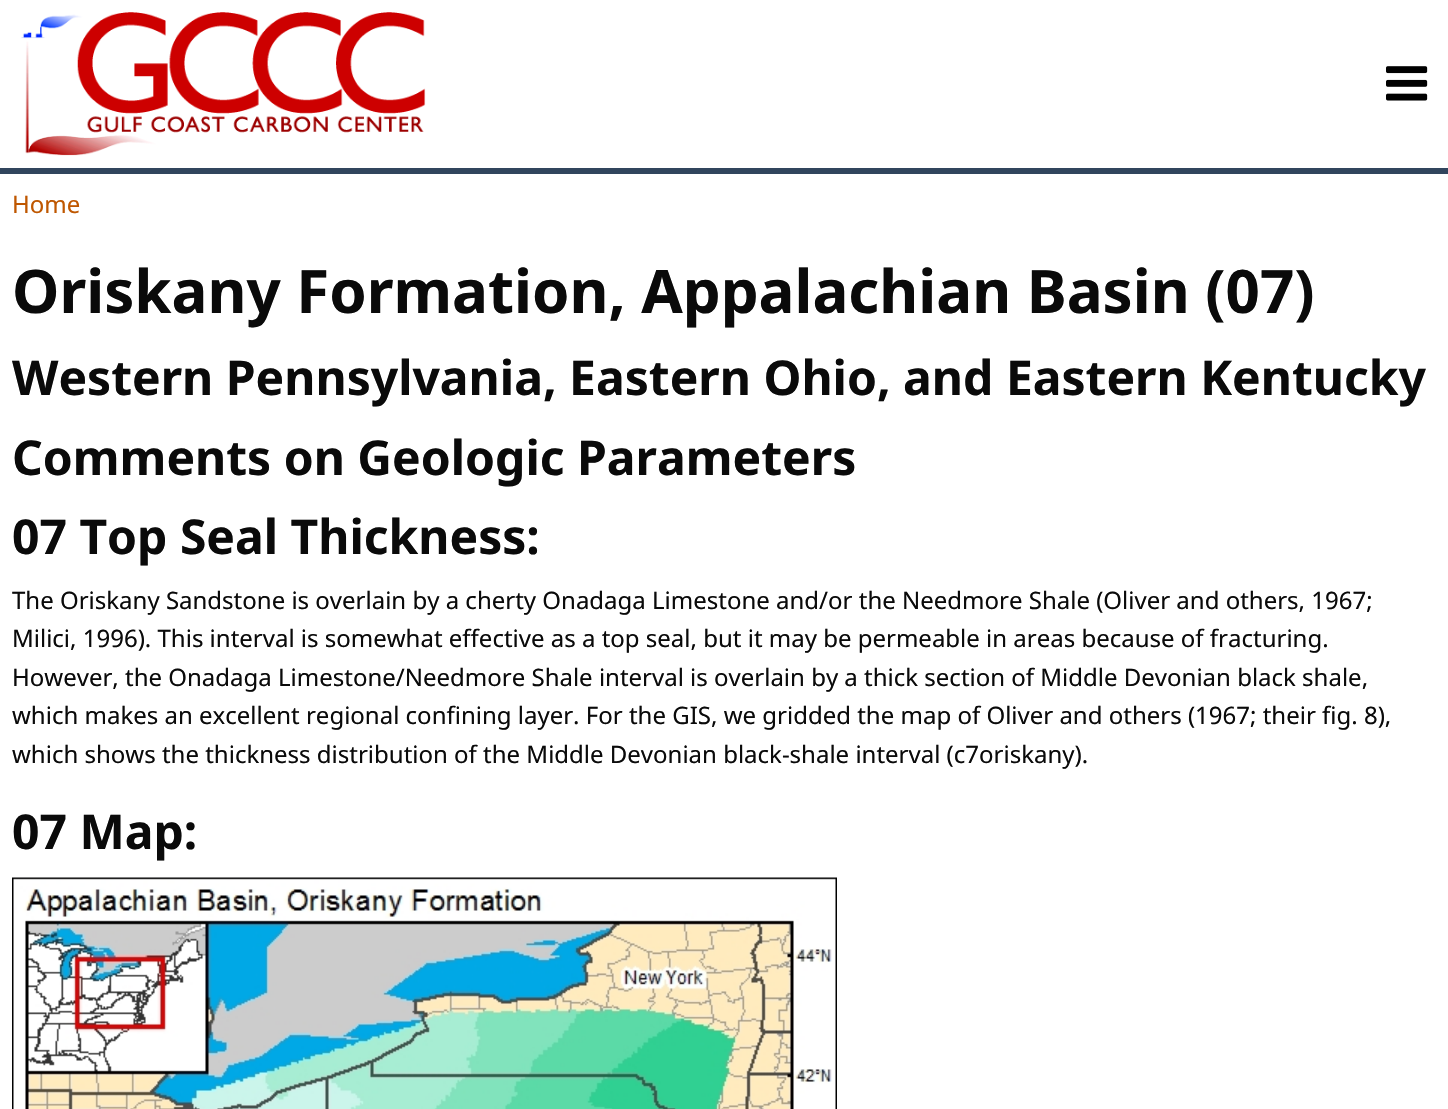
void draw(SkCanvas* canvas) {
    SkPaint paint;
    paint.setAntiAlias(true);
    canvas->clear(0xFFFFFFFF);
    canvas->drawImageRect(SkImages::DeferredFromEncodedData(SkData::MakeFromFileName("img1.png")), SkRect::MakeXYWH(21, 12, 405, 144), SkSamplingOptions());
    canvas->drawImageRect(SkImages::DeferredFromEncodedData(SkData::MakeFromFileName("img2.png")), SkRect::MakeXYWH(1386, 66, 42, 35), SkSamplingOptions());
    paint.setColor(0xFF31455D);
    canvas->drawRect(SkRect::MakeXYWH(0, 168, 1448, 6), paint);
    SkFont font1(fontMgr->matchFamilyStyle("Noto Sans", SkFontStyle::Normal()), 24);
    font1.setSubpixel(true);
    paint.setColor(0xFFBF5700);
    canvas->drawString("Home", 12, 213, font1, paint);
    SkFont font2(fontMgr->matchFamilyStyle("Noto Sans", SkFontStyle::Bold()), 60);
    font2.setSubpixel(true);
    paint.setColor(0xFF0A0A0A);
    canvas->drawString("Oriskany Formation, Appalachian Basin (07)", 12, 313, font2, paint);
    SkFont font3(fontMgr->matchFamilyStyle("Noto Sans", SkFontStyle::Bold()), 48);
    font3.setSubpixel(true);
    canvas->drawString("Western Pennsylvania, Eastern Ohio, and Eastern Kentucky", 12, 395, font3, paint);
    canvas->drawString("Comments on Geologic Parameters", 12, 475, font3, paint);
    canvas->drawString("07 Top Seal Thickness:", 12, 554, font3, paint);
    canvas->drawString("The Oriskany Sandstone is overlain by a cherty Onadaga Limestone and/or the Needmore Shale (Oliver and others, 1967;", 12, 609, font1, paint);
    canvas->drawString("Milici, 1996). This interval is somewhat effective as a top seal, but it may be permeable in areas because of fracturing.", 12, 647, font1, paint);
    canvas->drawString("However, the Onadaga Limestone/Needmore Shale interval is overlain by a thick section of Middle Devonian black shale,", 12, 686, font1, paint);
    canvas->drawString("which makes an excellent regional confining layer. For the GIS, we gridded the map of Oliver and others (1967; their fig. 8),", 12, 724, font1, paint);
    canvas->drawString("which shows the thickness distribution of the Middle Devonian black-shale interval (c7oriskany).", 12, 763, font1, paint);
    canvas->drawString("07 Map:", 12, 849, font3, paint);
    canvas->drawImageRect(SkImages::DeferredFromEncodedData(SkData::MakeFromFileName("img3.png")), SkRect::MakeXYWH(12, 877, 825, 232), SkSamplingOptions());
}
